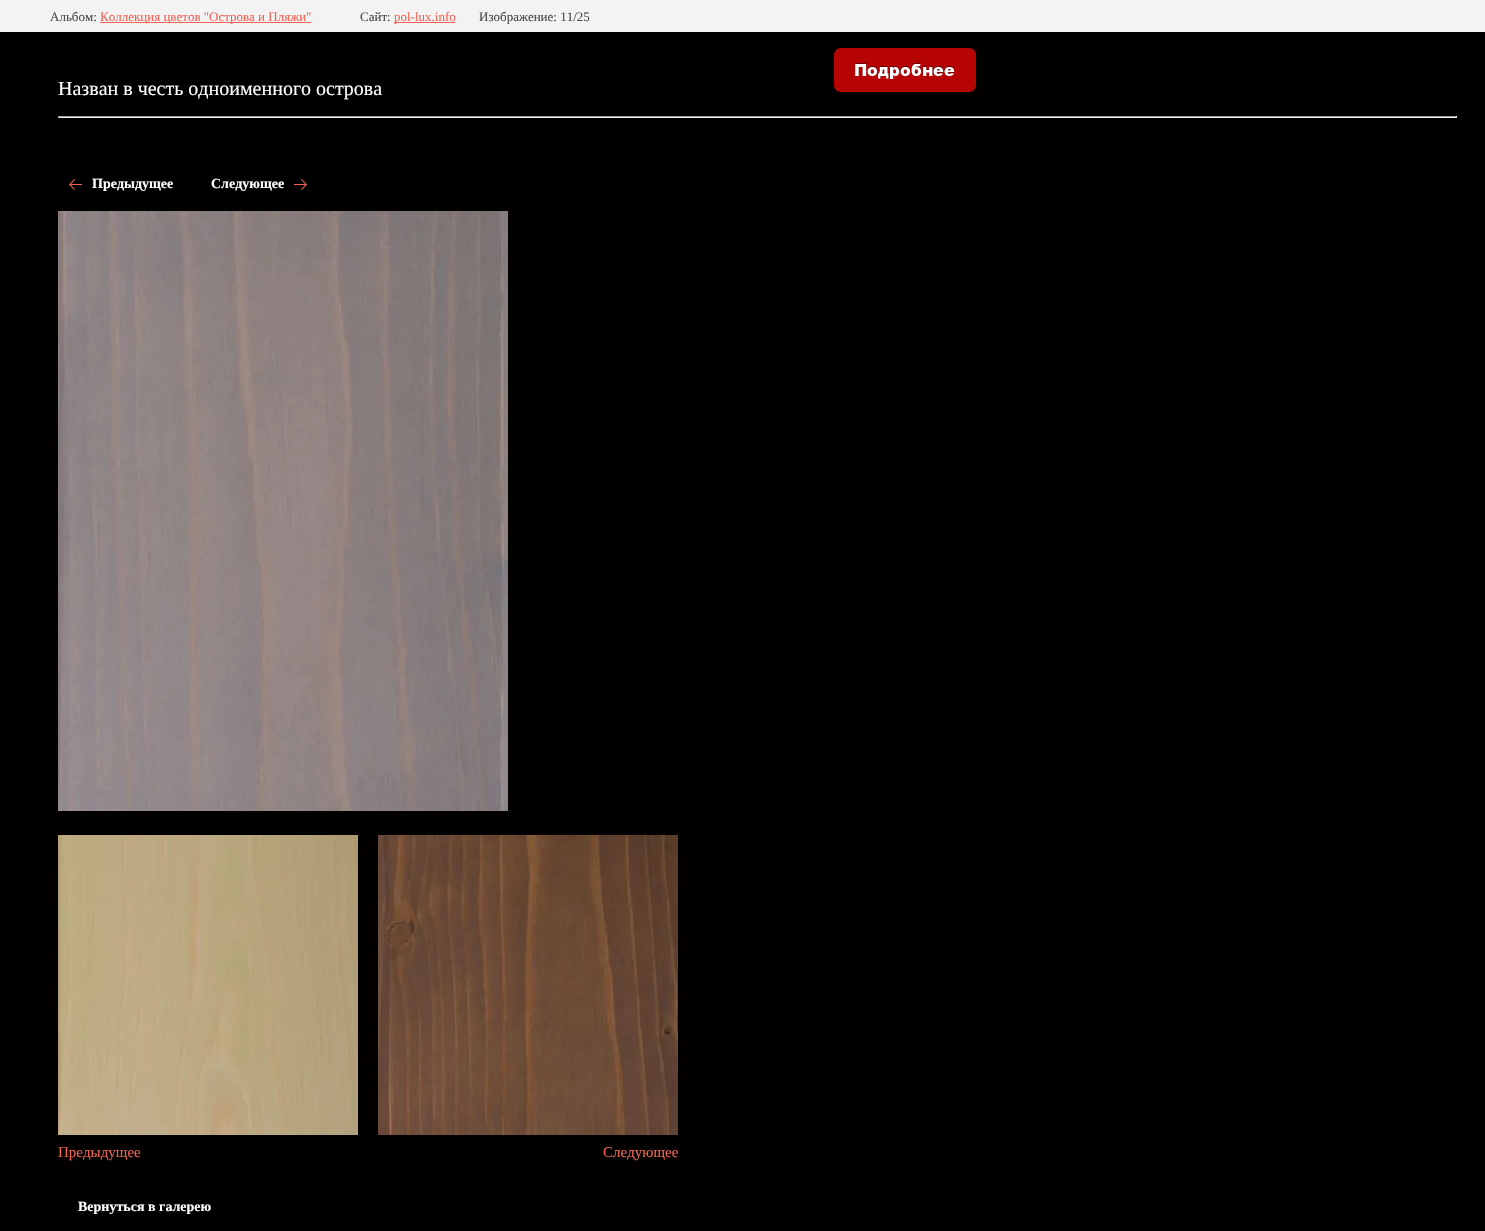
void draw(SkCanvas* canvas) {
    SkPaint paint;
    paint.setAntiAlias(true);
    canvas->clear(0xFF000000);
    paint.setColor(0xFF030000);
    canvas->drawRect(SkRect::MakeXYWH(8, 32, 1469, 1192), paint);
    paint.setColor(0xFFF3F3F3);
    canvas->drawRect(SkRect::MakeXYWH(0, 0, 1485, 32), paint);
    SkFont font1(fontMgr->matchFamilyStyle("Liberation Serif", SkFontStyle::Normal()), 13);
    font1.setSubpixel(true);
    paint.setColor(0xFF484848);
    canvas->drawString("Альбом:", 50, 21, font1, paint);
    paint.setColor(0xFFF06354);
    canvas->drawRect(SkRect::MakeXYWH(100, 22, 211, 1), paint);
    canvas->drawString("Коллекция цветов \"Острова и Пляжи\"", 100, 21, font1, paint);
    paint.setColor(0xFF484848);
    canvas->drawString("Сайт:", 360, 21, font1, paint);
    paint.setColor(0xFFF06354);
    canvas->drawRect(SkRect::MakeXYWH(394, 22, 61, 1), paint);
    canvas->drawString("pol-lux.info", 394, 21, font1, paint);
    paint.setColor(0xFF484848);
    canvas->drawString("Изображение: 11/25", 479, 21, font1, paint);
    paint.setColor(0xFF000000);
    canvas->drawRect(SkRect::MakeXYWH(58, 77, 774, 22), paint);
    SkFont font2(fontMgr->matchFamilyStyle("Liberation Serif", SkFontStyle::Normal()), 20);
    font2.setSubpixel(true);
    paint.setColor(0xFFFFFFFF);
    canvas->drawString("Назван в честь одноименного острова", 58, 95, font2, paint);
    canvas->drawImageRect(SkImages::DeferredFromEncodedData(SkData::MakeFromFileName("img1.png")), SkRect::MakeXYWH(834, 48, 142, 44), SkSamplingOptions());
    paint.setColor(0xFF9F9F9F);
    canvas->drawRect(SkRect::MakeXYWH(58, 116, 1399, 1), paint);
    paint.setColor(0xFFEEEEEE);
    canvas->drawRect(SkRect::MakeXYWH(1456, 116, 1, 2), paint);
    canvas->drawRect(SkRect::MakeXYWH(58, 117, 1399, 1), paint);
    paint.setColor(0xFF9F9F9F);
    canvas->drawRect(SkRect::MakeXYWH(58, 116, 1, 2), paint);
    paint.setColor(0xFF000000);
    canvas->drawRoundRect(SkRect::MakeXYWH(58, 168, 132, 33), 4, 4, paint);
    canvas->drawImageRect(SkImages::DeferredFromEncodedData(SkData::MakeFromFileName("img2.png")), SkRect::MakeXYWH(69, 179, 13, 11), SkSamplingOptions());
    SkFont font3(fontMgr->matchFamilyStyle("Liberation Serif", SkFontStyle::Bold()), 14);
    font3.setSubpixel(true);
    paint.setColor(0xFFFFFFFF);
    canvas->drawString("Предыдущее", 92, 188, font3, paint);
    paint.setColor(0xFF000000);
    canvas->drawRoundRect(SkRect::MakeXYWH(194, 168, 124, 33), 4, 4, paint);
    paint.setColor(0xFFFFFFFF);
    canvas->drawString("Следующее", 211, 188, font3, paint);
    canvas->drawImageRect(SkImages::DeferredFromEncodedData(SkData::MakeFromFileName("img3.png")), SkRect::MakeXYWH(294, 179, 13, 11), SkSamplingOptions());
    canvas->drawImageRect(SkImages::DeferredFromEncodedData(SkData::MakeFromFileName("img4.png")), SkRect::MakeXYWH(58, 211, 450, 600), SkSamplingOptions());
    canvas->drawImageRect(SkImages::DeferredFromEncodedData(SkData::MakeFromFileName("img5.png")), SkRect::MakeXYWH(58, 835, 300, 300), SkSamplingOptions());
    SkFont font4(fontMgr->matchFamilyStyle("Liberation Serif", SkFontStyle::Normal()), 15);
    font4.setSubpixel(true);
    paint.setColor(0xFFF06354);
    canvas->drawString("Предыдущее", 58, 1157, font4, paint);
    canvas->drawImageRect(SkImages::DeferredFromEncodedData(SkData::MakeFromFileName("img6.png")), SkRect::MakeXYWH(378, 835, 300, 300), SkSamplingOptions());
    canvas->drawString("Следующее", 603, 1157, font4, paint);
    paint.setColor(0xFF000000);
    canvas->drawRoundRect(SkRect::MakeXYWH(58, 1191, 173, 33), 4, 4, paint);
    paint.setColor(0xFFFFFFFF);
    canvas->drawString("Вернуться в галерею", 78, 1211, font3, paint);
}
